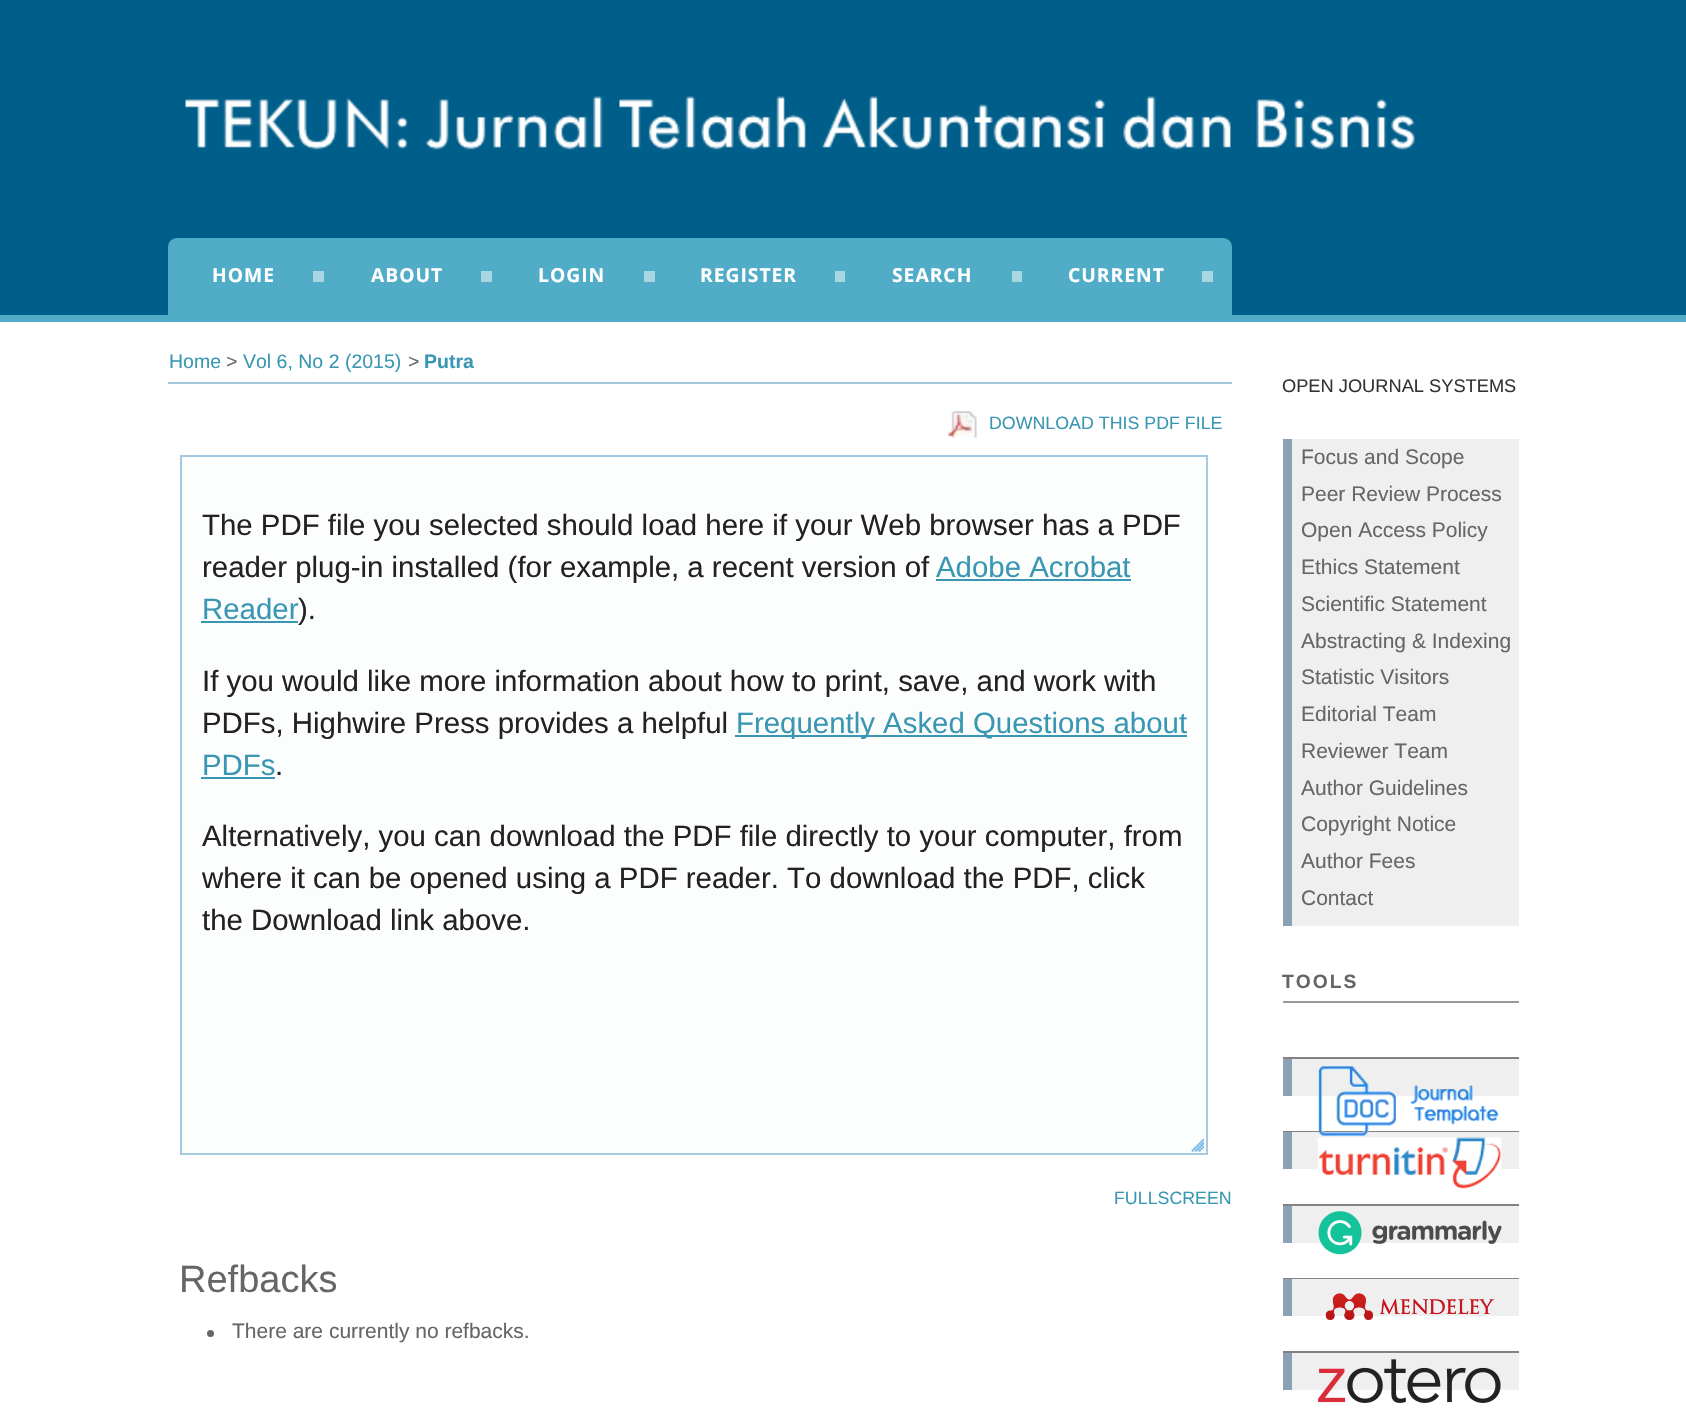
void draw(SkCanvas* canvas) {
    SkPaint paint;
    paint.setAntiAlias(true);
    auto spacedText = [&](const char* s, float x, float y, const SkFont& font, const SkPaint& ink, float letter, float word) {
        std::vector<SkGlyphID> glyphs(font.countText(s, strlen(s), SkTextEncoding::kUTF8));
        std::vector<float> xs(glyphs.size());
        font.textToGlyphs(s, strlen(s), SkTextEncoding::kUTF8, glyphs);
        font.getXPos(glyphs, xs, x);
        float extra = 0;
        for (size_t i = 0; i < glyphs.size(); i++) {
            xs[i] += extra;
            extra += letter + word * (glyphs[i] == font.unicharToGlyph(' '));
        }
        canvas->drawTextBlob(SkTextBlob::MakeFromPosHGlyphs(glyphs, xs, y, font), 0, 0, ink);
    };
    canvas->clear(0xFFFFFFFF);
    paint.setColor(0xFF005E8A);
    canvas->drawRect(SkRect::MakeXYWH(0, 0, 1686, 315), paint);
    paint.setColor(0xFF50ACC7);
    canvas->drawRect(SkRect::MakeXYWH(0, 315, 1686, 7), paint);
    canvas->drawImageRect(SkImages::DeferredFromEncodedData(SkData::MakeFromFileName("img1.png")), SkRect::MakeXYWH(185, 96, 1230, 54), SkSamplingOptions());
    canvas->drawPath(SkPathBuilder().moveTo(177, 238).lineTo(1223, 238).cubicTo(1228, 238, 1232, 242, 1232, 247).lineTo(1232, 322).lineTo(168, 322).lineTo(168, 247).cubicTo(168, 242, 172, 238, 177, 238).close().detach(), paint);
    SkFont font1(fontMgr->matchFamilyStyle("Open Sans", SkFontStyle::Bold()), 19.25f);
    font1.setSubpixel(true);
    paint.setColor(0xFFFFFFFF);
    spacedText("HOME", 212, 282, font1, paint, 1, 0);
    paint.setColor(0xFFA8D6E3);
    canvas->drawRect(SkRect::MakeXYWH(313, 271, 11, 11), paint);
    paint.setColor(0xFFFFFFFF);
    spacedText("ABOUT", 371, 282, font1, paint, 1, 0);
    paint.setColor(0xFFA8D6E3);
    canvas->drawRect(SkRect::MakeXYWH(481, 271, 11, 11), paint);
    paint.setColor(0xFFFFFFFF);
    spacedText("LOGIN", 538, 282, font1, paint, 1, 0);
    paint.setColor(0xFFA8D6E3);
    canvas->drawRect(SkRect::MakeXYWH(644, 271, 11, 11), paint);
    paint.setColor(0xFFFFFFFF);
    spacedText("REGISTER", 700, 282, font1, paint, 1, 0);
    paint.setColor(0xFFA8D6E3);
    canvas->drawRect(SkRect::MakeXYWH(835, 271, 10, 11), paint);
    paint.setColor(0xFFFFFFFF);
    spacedText("SEARCH", 892, 282, font1, paint, 1, 0);
    paint.setColor(0xFFA8D6E3);
    canvas->drawRect(SkRect::MakeXYWH(1012, 271, 10, 11), paint);
    paint.setColor(0xFFFFFFFF);
    spacedText("CURRENT", 1068, 282, font1, paint, 1, 0);
    paint.setColor(0xFFA8D6E3);
    canvas->drawRect(SkRect::MakeXYWH(1202, 271, 11, 11), paint);
    SkFont font2(fontMgr->matchFamilyStyle("Liberation Sans", SkFontStyle::Normal()), 19.5f);
    font2.setSubpixel(true);
    paint.setColor(0xFF3997B3);
    canvas->drawString("Home", 169, 368, font2, paint);
    paint.setColor(0xFF666666);
    canvas->drawString(">", 226, 368, font2, paint);
    paint.setColor(0xFF3997B3);
    canvas->drawString("Vol 6, No 2 (2015)", 243, 368, font2, paint);
    paint.setColor(0xFF666666);
    canvas->drawString(">", 408, 368, font2, paint);
    SkFont font3(fontMgr->matchFamilyStyle("Liberation Sans", SkFontStyle::Bold()), 19.5f);
    font3.setSubpixel(true);
    paint.setColor(0xFF3997B3);
    canvas->drawString("Putra", 424, 368, font3, paint);
    paint.setColor(0xFFA2C8DB);
    canvas->drawRect(SkRect::MakeXYWH(168, 382, 1064, 2), paint);
    canvas->drawImageRect(SkImages::DeferredFromEncodedData(SkData::MakeFromFileName("img2.png")), SkRect::MakeXYWH(948, 411, 29, 27), SkSamplingOptions());
    SkFont font4(fontMgr->matchFamilyStyle("Liberation Sans", SkFontStyle::Normal()), 17.8f);
    font4.setSubpixel(true);
    paint.setColor(0xFF3997B3);
    canvas->drawString("DOWNLOAD THIS PDF FILE", 989, 429, font4, paint);
    paint.setColor(0xFFFCFDFD);
    canvas->drawRect(SkRect::MakeXYWH(181, 456, 1026, 698), paint);
    paint.setStyle(SkPaint::kStroke_Style);
    paint.setStrokeWidth(2);
    paint.setColor(0xFFA6C9E2);
    canvas->drawRect(SkRect::MakeXYWH(181, 456, 1026, 698), paint);
    SkFont font5(fontMgr->matchFamilyStyle("Liberation Sans", SkFontStyle::Normal()), 29.4f);
    font5.setSubpixel(true);
    paint.setStyle(SkPaint::kFill_Style);
    paint.setColor(0xFF222222);
    canvas->drawString("The PDF file you selected should load here if your Web browser has a PDF", 202, 535, font5, paint);
    canvas->drawString("reader plug-in installed (for example, a recent version of", 202, 577, font5, paint);
    paint.setColor(0xFF3997B3);
    canvas->drawString("Adobe Acrobat", 936, 577, font5, paint);
    canvas->drawRect(SkRect::MakeXYWH(936, 579, 195, 2), paint);
    canvas->drawString("Reader", 202, 619, font5, paint);
    canvas->drawRect(SkRect::MakeXYWH(201, 621, 97, 2), paint);
    paint.setColor(0xFF222222);
    canvas->drawString(").", 298, 619, font5, paint);
    canvas->drawString("If you would like more information about how to print, save, and work with", 202, 691, font5, paint);
    canvas->drawString("PDFs, Highwire Press provides a helpful", 202, 733, font5, paint);
    paint.setColor(0xFF3997B3);
    canvas->drawRect(SkRect::MakeXYWH(735, 735, 452, 2), paint);
    canvas->drawString("Frequently Asked Questions about", 736, 733, font5, paint);
    canvas->drawString("PDFs", 202, 775, font5, paint);
    canvas->drawRect(SkRect::MakeXYWH(201, 777, 74, 2), paint);
    paint.setColor(0xFF222222);
    canvas->drawString(".", 275, 775, font5, paint);
    canvas->drawString("Alternatively, you can download the PDF file directly to your computer, from", 202, 846, font5, paint);
    canvas->drawString("where it can be opened using a PDF reader. To download the PDF, click", 202, 888, font5, paint);
    canvas->drawString("the Download link above.", 202, 930, font5, paint);
    canvas->drawImageRect(SkImages::DeferredFromEncodedData(SkData::MakeFromFileName("img3.png")), SkRect::MakeXYWH(1191, 1138, 13, 14), SkSamplingOptions());
    paint.setColor(0xFF3997B3);
    canvas->drawString("FULLSCREEN", 1114, 1204, font4, paint);
    SkFont font6(fontMgr->matchFamilyStyle("Liberation Sans", SkFontStyle::Normal()), 38);
    font6.setSubpixel(true);
    paint.setColor(0xFF666666);
    canvas->drawString("Refbacks", 179, 1292, font6, paint);
    canvas->drawCircle(210.5f, 1333.5f, 3.5f, paint);
    SkFont font7(fontMgr->matchFamilyStyle("Liberation Sans", SkFontStyle::Normal()), 21);
    font7.setSubpixel(true);
    canvas->drawString("There are currently no refbacks.", 232, 1338, font7, paint);
    SkFont font8(fontMgr->matchFamilyStyle("Liberation Sans", SkFontStyle::Normal()), 18.25f);
    font8.setSubpixel(true);
    paint.setColor(0xFF333333);
    canvas->drawString("OPEN JOURNAL SYSTEMS", 1282, 392, font8, paint);
    paint.setColor(0xFFEFEFEF);
    canvas->drawRect(SkRect::MakeXYWH(1292, 439, 227, 487), paint);
    paint.setColor(0xFF8AA1B6);
    canvas->drawRect(SkRect::MakeXYWH(1283, 439, 9, 487), paint);
    paint.setColor(0xFF666666);
    canvas->drawString("Focus and Scope", 1301, 464, font7, paint);
    canvas->drawString("Peer Review Process", 1301, 501, font7, paint);
    canvas->drawString("Open Access Policy", 1301, 537, font7, paint);
    canvas->drawString("Ethics Statement", 1301, 574, font7, paint);
    canvas->drawString("Scientific Statement", 1301, 611, font7, paint);
    canvas->drawString("Abstracting & Indexing", 1301, 648, font7, paint);
    canvas->drawString("Statistic Visitors", 1301, 684, font7, paint);
    canvas->drawString("Editorial Team", 1301, 721, font7, paint);
    canvas->drawString("Reviewer Team", 1301, 758, font7, paint);
    canvas->drawString("Author Guidelines", 1301, 795, font7, paint);
    canvas->drawString("Copyright Notice", 1301, 831, font7, paint);
    canvas->drawString("Author Fees", 1301, 868, font7, paint);
    canvas->drawString("Contact", 1301, 905, font7, paint);
    paint.setColor(0xFF999999);
    canvas->drawRect(SkRect::MakeXYWH(1283, 1001, 236, 2), paint);
    SkFont font9(fontMgr->matchFamilyStyle("Liberation Sans", SkFontStyle::Bold()), 19.25f);
    font9.setSubpixel(true);
    paint.setColor(0xFF666666);
    spacedText("TOOLS", 1282, 988, font9, paint, 2, 0);
    paint.setColor(0xFF828282);
    canvas->drawRect(SkRect::MakeXYWH(1283, 1057, 236, 2), paint);
    paint.setColor(0xFFEFEFEF);
    canvas->drawRect(SkRect::MakeXYWH(1292, 1059, 227, 37), paint);
    paint.setColor(0xFF8AA1B6);
    canvas->drawRect(SkRect::MakeXYWH(1283, 1059, 9, 37), paint);
    paint.setColor(0xFF828282);
    canvas->drawRect(SkRect::MakeXYWH(1283, 1131, 236, 1), paint);
    paint.setColor(0xFFEFEFEF);
    canvas->drawRect(SkRect::MakeXYWH(1292, 1132, 227, 37), paint);
    canvas->drawImageRect(SkImages::DeferredFromEncodedData(SkData::MakeFromFileName("img4.png")), SkRect::MakeXYWH(1318, 1066, 181, 70), SkSamplingOptions());
    paint.setColor(0xFF8AA1B6);
    canvas->drawRect(SkRect::MakeXYWH(1283, 1132, 9, 37), paint);
    canvas->drawImageRect(SkImages::DeferredFromEncodedData(SkData::MakeFromFileName("img5.png")), SkRect::MakeXYWH(1317, 1137, 185, 52), SkSamplingOptions());
    paint.setColor(0xFF828282);
    canvas->drawRect(SkRect::MakeXYWH(1283, 1204, 236, 2), paint);
    paint.setColor(0xFFEFEFEF);
    canvas->drawRect(SkRect::MakeXYWH(1292, 1206, 227, 37), paint);
    paint.setColor(0xFF8AA1B6);
    canvas->drawRect(SkRect::MakeXYWH(1283, 1206, 9, 37), paint);
    canvas->drawImageRect(SkImages::DeferredFromEncodedData(SkData::MakeFromFileName("img6.png")), SkRect::MakeXYWH(1318, 1211, 184, 44), SkSamplingOptions());
    paint.setColor(0xFF828282);
    canvas->drawRect(SkRect::MakeXYWH(1283, 1278, 236, 1), paint);
    paint.setColor(0xFFEFEFEF);
    canvas->drawRect(SkRect::MakeXYWH(1292, 1279, 227, 37), paint);
    paint.setColor(0xFF8AA1B6);
    canvas->drawRect(SkRect::MakeXYWH(1283, 1279, 9, 37), paint);
    canvas->drawImageRect(SkImages::DeferredFromEncodedData(SkData::MakeFromFileName("img7.png")), SkRect::MakeXYWH(1325, 1293, 169, 27), SkSamplingOptions());
    paint.setColor(0xFF828282);
    canvas->drawRect(SkRect::MakeXYWH(1283, 1351, 236, 2), paint);
    paint.setColor(0xFFEFEFEF);
    canvas->drawRect(SkRect::MakeXYWH(1292, 1353, 227, 37), paint);
    paint.setColor(0xFF8AA1B6);
    canvas->drawRect(SkRect::MakeXYWH(1283, 1353, 9, 37), paint);
    canvas->drawImageRect(SkImages::DeferredFromEncodedData(SkData::MakeFromFileName("img8.png")), SkRect::MakeXYWH(1318, 1359, 183, 44), SkSamplingOptions());
}
